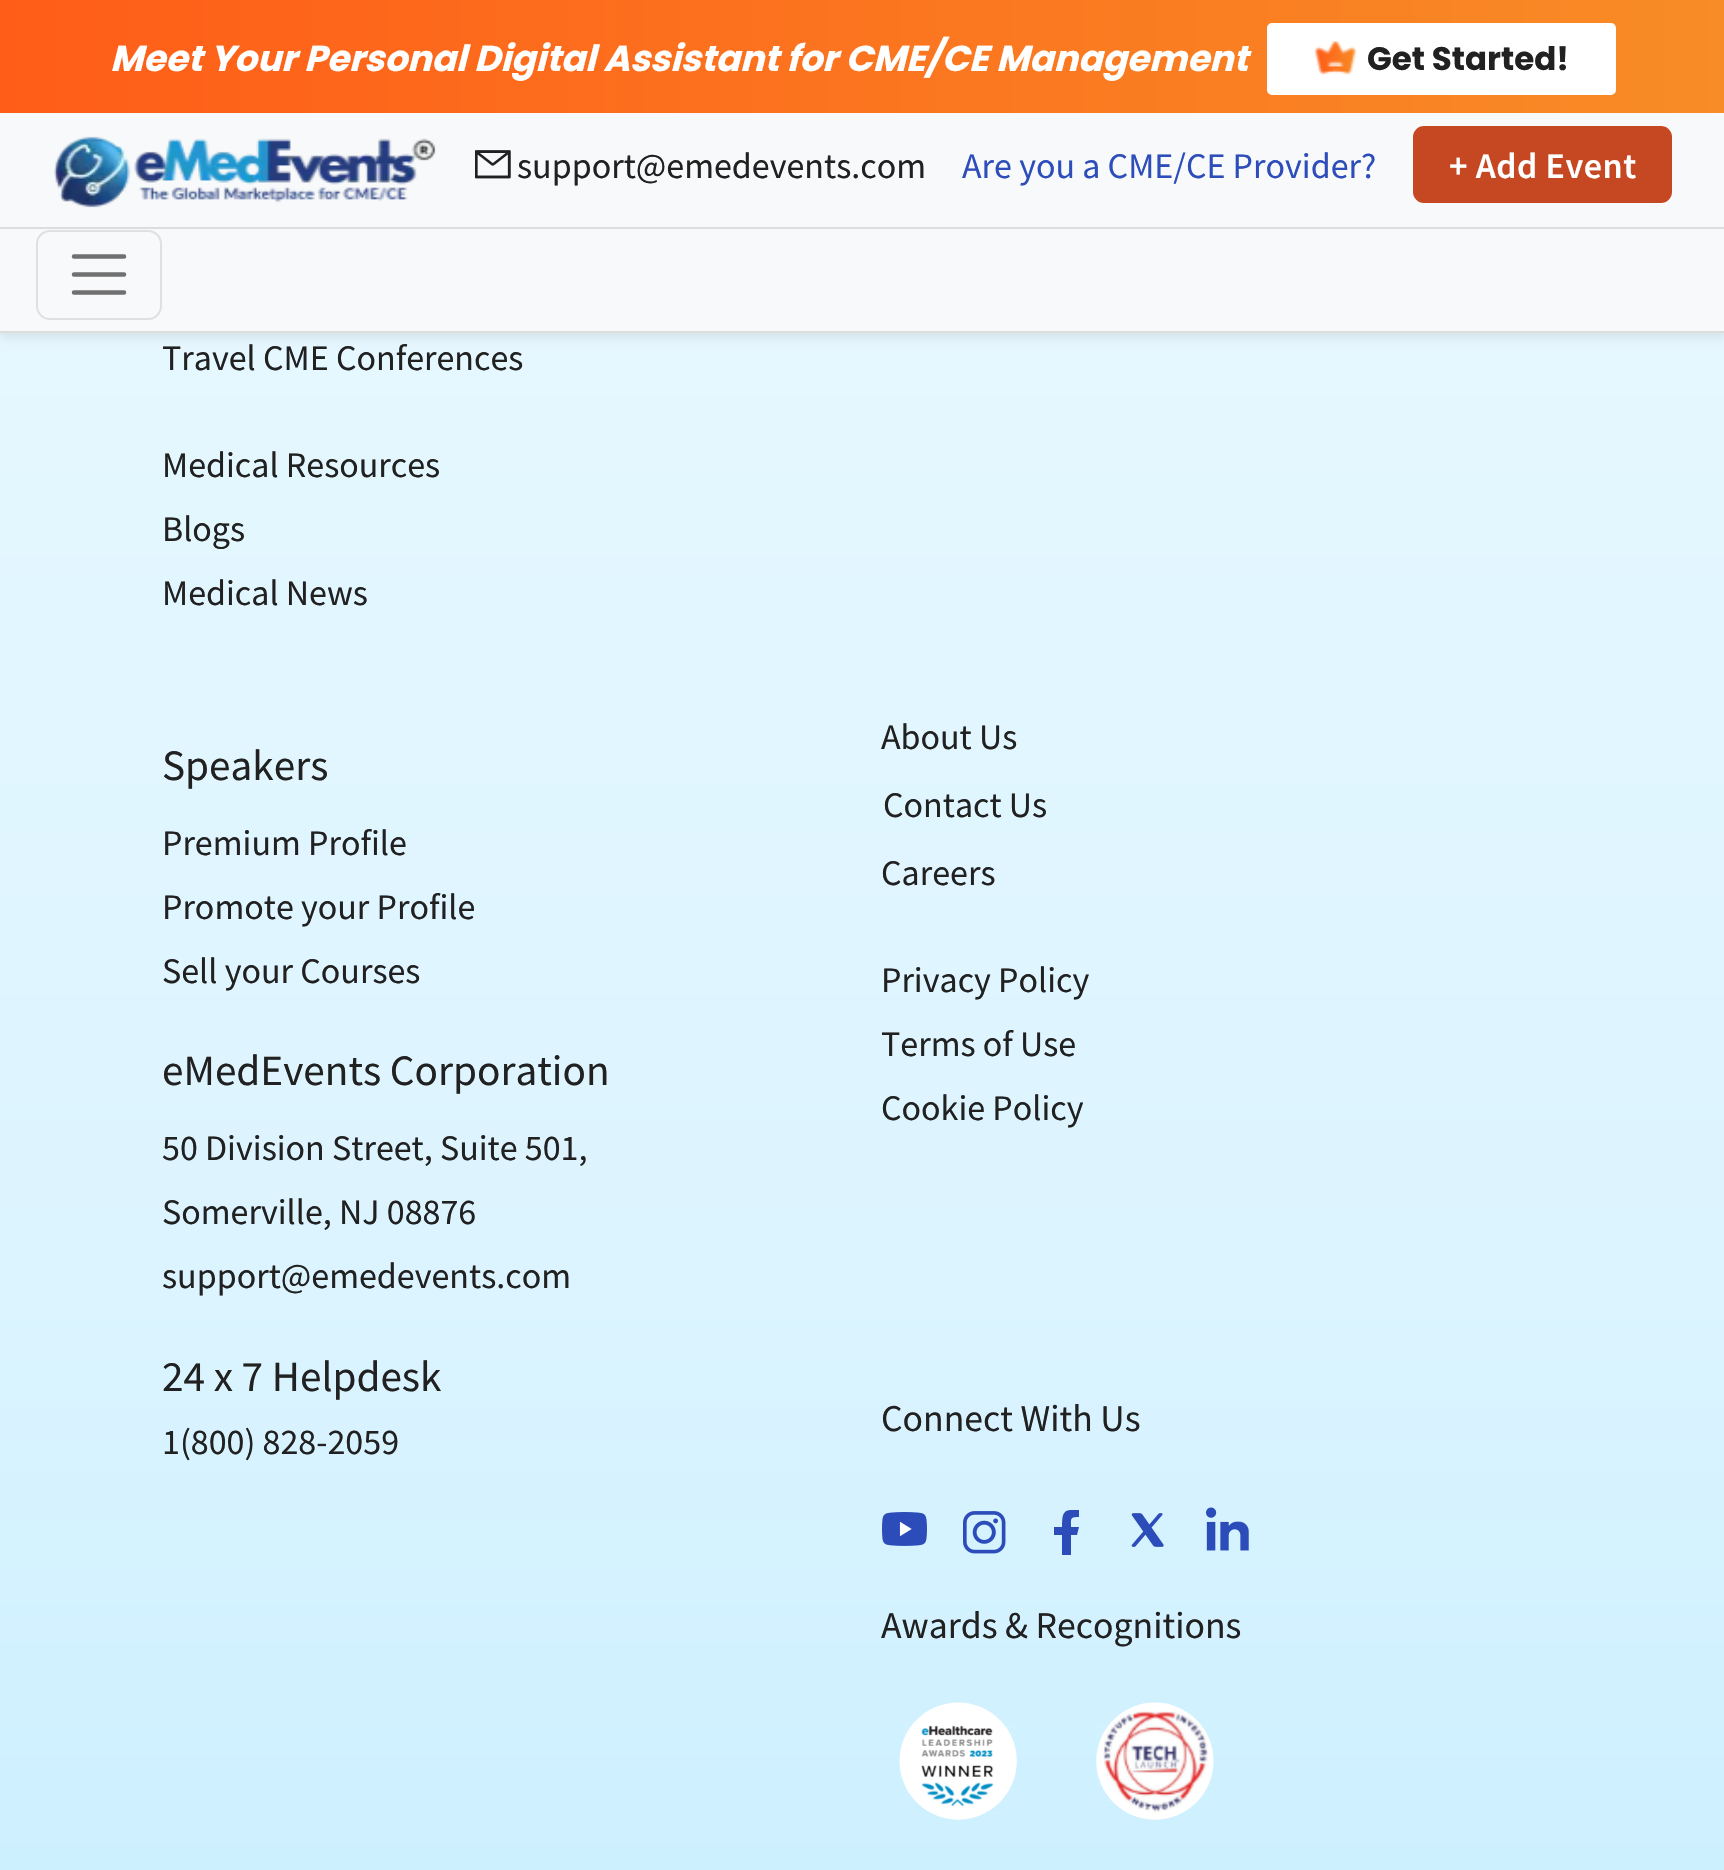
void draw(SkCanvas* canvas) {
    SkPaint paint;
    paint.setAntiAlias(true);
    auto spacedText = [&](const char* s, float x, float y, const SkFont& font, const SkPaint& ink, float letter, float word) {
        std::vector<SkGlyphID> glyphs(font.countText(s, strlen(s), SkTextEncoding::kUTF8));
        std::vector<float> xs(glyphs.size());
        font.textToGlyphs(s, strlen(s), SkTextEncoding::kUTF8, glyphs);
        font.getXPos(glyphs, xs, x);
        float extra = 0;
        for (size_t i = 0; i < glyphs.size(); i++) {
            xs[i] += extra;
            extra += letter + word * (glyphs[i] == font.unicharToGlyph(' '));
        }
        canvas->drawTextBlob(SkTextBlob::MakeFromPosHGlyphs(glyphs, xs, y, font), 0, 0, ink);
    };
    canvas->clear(0xFFFFFFFF);
    {
        const SkColor colors[] = {0xFFFFFFFF, 0xFFFAFBFF, 0xFFE4F7FF, 0xFFDCF4FF, 0xFFC7EEFF};
        const float stops[] = {0, 0.25f, 0.5f, 0.75f, 1};
        const SkPoint ends[] = {{863, -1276}, {863, 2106}};
        paint.setShader(SkGradientShader::MakeLinear(ends, colors, stops, 5, SkTileMode::kClamp));
        paint.setAlpha(255);
    }
    canvas->drawRect(SkRect::MakeXYWH(0, 333, 1724, 1537), paint);
    paint.setShader(nullptr);
    paint.setColor(0x14000000);
    paint.setMaskFilter(SkMaskFilter::MakeBlur(kNormal_SkBlurStyle, 4.5f));
    canvas->drawRect(SkRect::MakeXYWH(0, 5, 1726, 333), paint);
    paint.setMaskFilter(nullptr);
    paint.setColor(0xFFF8F9FA);
    canvas->drawRect(SkRect::MakeXYWH(0, 113, 1724, 218), paint);
    paint.setColor(0xFFDDDDDD);
    canvas->drawRect(SkRect::MakeXYWH(0, 331, 1724, 2), paint);
    {
        const SkColor colors[] = {0xFFFF5D18, 0xFFF88C26};
        const float stops[] = {0, 1};
        const SkPoint ends[] = {{0, 53}, {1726, 53}};
        paint.setShader(SkGradientShader::MakeLinear(ends, colors, stops, 2, SkTileMode::kClamp));
        paint.setAlpha(255);
    }
    canvas->drawRect(SkRect::MakeXYWH(0, 0, 1724, 113), paint);
    SkFont font1(fontMgr->matchFamilyStyle("Poppins", SkFontStyle::BoldItalic()), 36);
    font1.setSubpixel(true);
    paint.setShader(nullptr);
    paint.setColor(0xFFFFFFFF);
    canvas->drawString("Meet Your Personal Digital Assistant for CME/CE Management", 110, 71, font1, paint);
    canvas->drawRoundRect(SkRect::MakeXYWH(1268, 24, 347, 70), 4, 4, paint);
    paint.setStyle(SkPaint::kStroke_Style);
    paint.setStrokeWidth(2);
    canvas->drawRoundRect(SkRect::MakeXYWH(1268, 24, 347, 70), 4, 4, paint);
    canvas->drawImageRect(SkImages::DeferredFromEncodedData(SkData::MakeFromFileName("img1.png")), SkRect::MakeXYWH(1315, 41, 42, 35), SkSamplingOptions());
    SkFont font2(fontMgr->matchFamilyStyle("Poppins", SkFontStyle::Bold()), 32.5f);
    font2.setSubpixel(true);
    paint.setStyle(SkPaint::kFill_Style);
    paint.setColor(0xFF212121);
    canvas->drawString("Get Started!", 1367, 70, font2, paint);
    paint.setColor(0xFFDDDDDD);
    canvas->drawRect(SkRect::MakeXYWH(0, 227, 1724, 2), paint);
    canvas->drawImageRect(SkImages::DeferredFromEncodedData(SkData::MakeFromFileName("img2.png")), SkRect::MakeXYWH(54, 136, 382, 72), SkSamplingOptions());
    canvas->drawImageRect(SkImages::DeferredFromEncodedData(SkData::MakeFromFileName("img3.png")), SkRect::MakeXYWH(475, 150, 36, 29), SkSamplingOptions());
    SkFont font3(fontMgr->matchFamilyStyle("Source Sans Pro", SkFontStyle::Normal()), 36);
    font3.setSubpixel(true);
    paint.setColor(0xFF212121);
    canvas->drawString("support@emedevents.com", 517, 178, font3, paint);
    paint.setColor(0xFF2D4DBA);
    canvas->drawString("Are you a CME/CE Provider?", 962, 178, font3, paint);
    paint.setColor(0xFFC64823);
    canvas->drawRoundRect(SkRect::MakeXYWH(1414, 127, 257, 75), 10, 10, paint);
    paint.setStyle(SkPaint::kStroke_Style);
    canvas->drawRoundRect(SkRect::MakeXYWH(1414, 127, 257, 75), 10, 10, paint);
    SkFont font4(fontMgr->matchFamilyStyle("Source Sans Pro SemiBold", SkFontStyle(600, SkFontStyle::kNormal_Width, SkFontStyle::kUpright_Slant)), 36);
    font4.setSubpixel(true);
    paint.setStyle(SkPaint::kFill_Style);
    paint.setColor(0xFFFFFFFF);
    spacedText("+ Add Event", 1449, 178, font4, paint, 0.5f, 0);
    paint.setStyle(SkPaint::kStroke_Style);
    paint.setColor(0xFFDFE0E1);
    canvas->drawRoundRect(SkRect::MakeXYWH(37, 231, 124, 88), 13, 13, paint);
    paint.setStrokeWidth(4.5f);
    paint.setStrokeCap(SkPaint::kRound_Cap);
    paint.setColor(0xFF707071);
    canvas->drawPath(SkPathBuilder().moveTo(74, 256.5f).lineTo(124, 256.5f).moveTo(74, 274.5f).lineTo(124, 274.5f).moveTo(74, 292.5f).lineTo(124, 292.5f).detach(), paint);
    paint.setStyle(SkPaint::kFill_Style);
    paint.setColor(0xFF212121);
    canvas->drawString("Travel CME Conferences", 162, 370, font3, paint);
    canvas->drawString("Medical Resources", 162, 477, font3, paint);
    canvas->drawString("Blogs", 162, 541, font3, paint);
    canvas->drawString("Medical News", 162, 605, font3, paint);
    SkFont font5(fontMgr->matchFamilyStyle("Source Sans Pro", SkFontStyle::Normal()), 43.25f);
    font5.setSubpixel(true);
    canvas->drawString("Speakers", 162, 780, font5, paint);
    canvas->drawString("Premium Profile", 162, 855, font3, paint);
    canvas->drawString("Promote your Profile", 162, 919, font3, paint);
    canvas->drawString("Sell your Courses", 162, 983, font3, paint);
    canvas->drawString("eMedEvents Corporation", 162, 1085, font5, paint);
    canvas->drawString("50 Division Street, Suite 501,", 162, 1160, font3, paint);
    canvas->drawString("Somerville, NJ 08876", 162, 1224, font3, paint);
    canvas->drawString("support@emedevents.com", 162, 1288, font3, paint);
    canvas->drawString("24 x 7 Helpdesk", 162, 1391, font5, paint);
    canvas->drawString("1(800) 828-2059", 162, 1454, font3, paint);
    canvas->drawString("About Us", 881, 749, font3, paint);
    canvas->drawString("Contact Us", 883, 817, font3, paint);
    canvas->drawString("Careers", 881, 885, font3, paint);
    canvas->drawString("Privacy Policy", 881, 992, font3, paint);
    canvas->drawString("Terms of Use", 881, 1056, font3, paint);
    canvas->drawString("Cookie Policy", 881, 1120, font3, paint);
    SkFont font6(fontMgr->matchFamilyStyle("Source Sans Pro", SkFontStyle::Normal()), 37.75f);
    font6.setSubpixel(true);
    canvas->drawString("Connect With Us", 881, 1431, font6, paint);
    canvas->drawImageRect(SkImages::DeferredFromEncodedData(SkData::MakeFromFileName("img4.png")), SkRect::MakeXYWH(882, 1512, 45, 34), SkSamplingOptions());
    canvas->drawImageRect(SkImages::DeferredFromEncodedData(SkData::MakeFromFileName("img5.png")), SkRect::MakeXYWH(963, 1511, 43, 43), SkSamplingOptions());
    canvas->save();
    canvas->clipRect(SkRect::MakeXYWH(1044, 1510, 45, 45));
    paint.setColor(0xFF2C4DB9);
    canvas->drawPath(SkPathBuilder(SkPathFillType::kEvenOdd).moveTo(1062, 1555).lineTo(1071, 1555).lineTo(1071, 1535).lineTo(1077, 1535).lineTo(1079, 1527).lineTo(1071, 1527).cubicTo(1071, 1518, 1070, 1517, 1079, 1517).lineTo(1079, 1510).cubicTo(1064, 1509, 1062, 1511, 1062, 1527).lineTo(1054, 1527).lineTo(1054, 1535).lineTo(1062, 1535).close().detach(), paint);
    canvas->restore();
    canvas->drawImageRect(SkImages::DeferredFromEncodedData(SkData::MakeFromFileName("img6.png")), SkRect::MakeXYWH(1131, 1513, 33, 34), SkSamplingOptions());
    canvas->drawImageRect(SkImages::DeferredFromEncodedData(SkData::MakeFromFileName("img7.png")), SkRect::MakeXYWH(1206, 1507, 43, 44), SkSamplingOptions());
    paint.setColor(0xFF212121);
    canvas->drawString("Awards & Recognitions", 881, 1638, font6, paint);
    canvas->drawImageRect(SkImages::DeferredFromEncodedData(SkData::MakeFromFileName("img8.png")), SkRect::MakeXYWH(899, 1702, 118, 118), SkSamplingOptions());
    canvas->drawImageRect(SkImages::DeferredFromEncodedData(SkData::MakeFromFileName("img9.png")), SkRect::MakeXYWH(1096, 1702, 118, 118), SkSamplingOptions());
}
